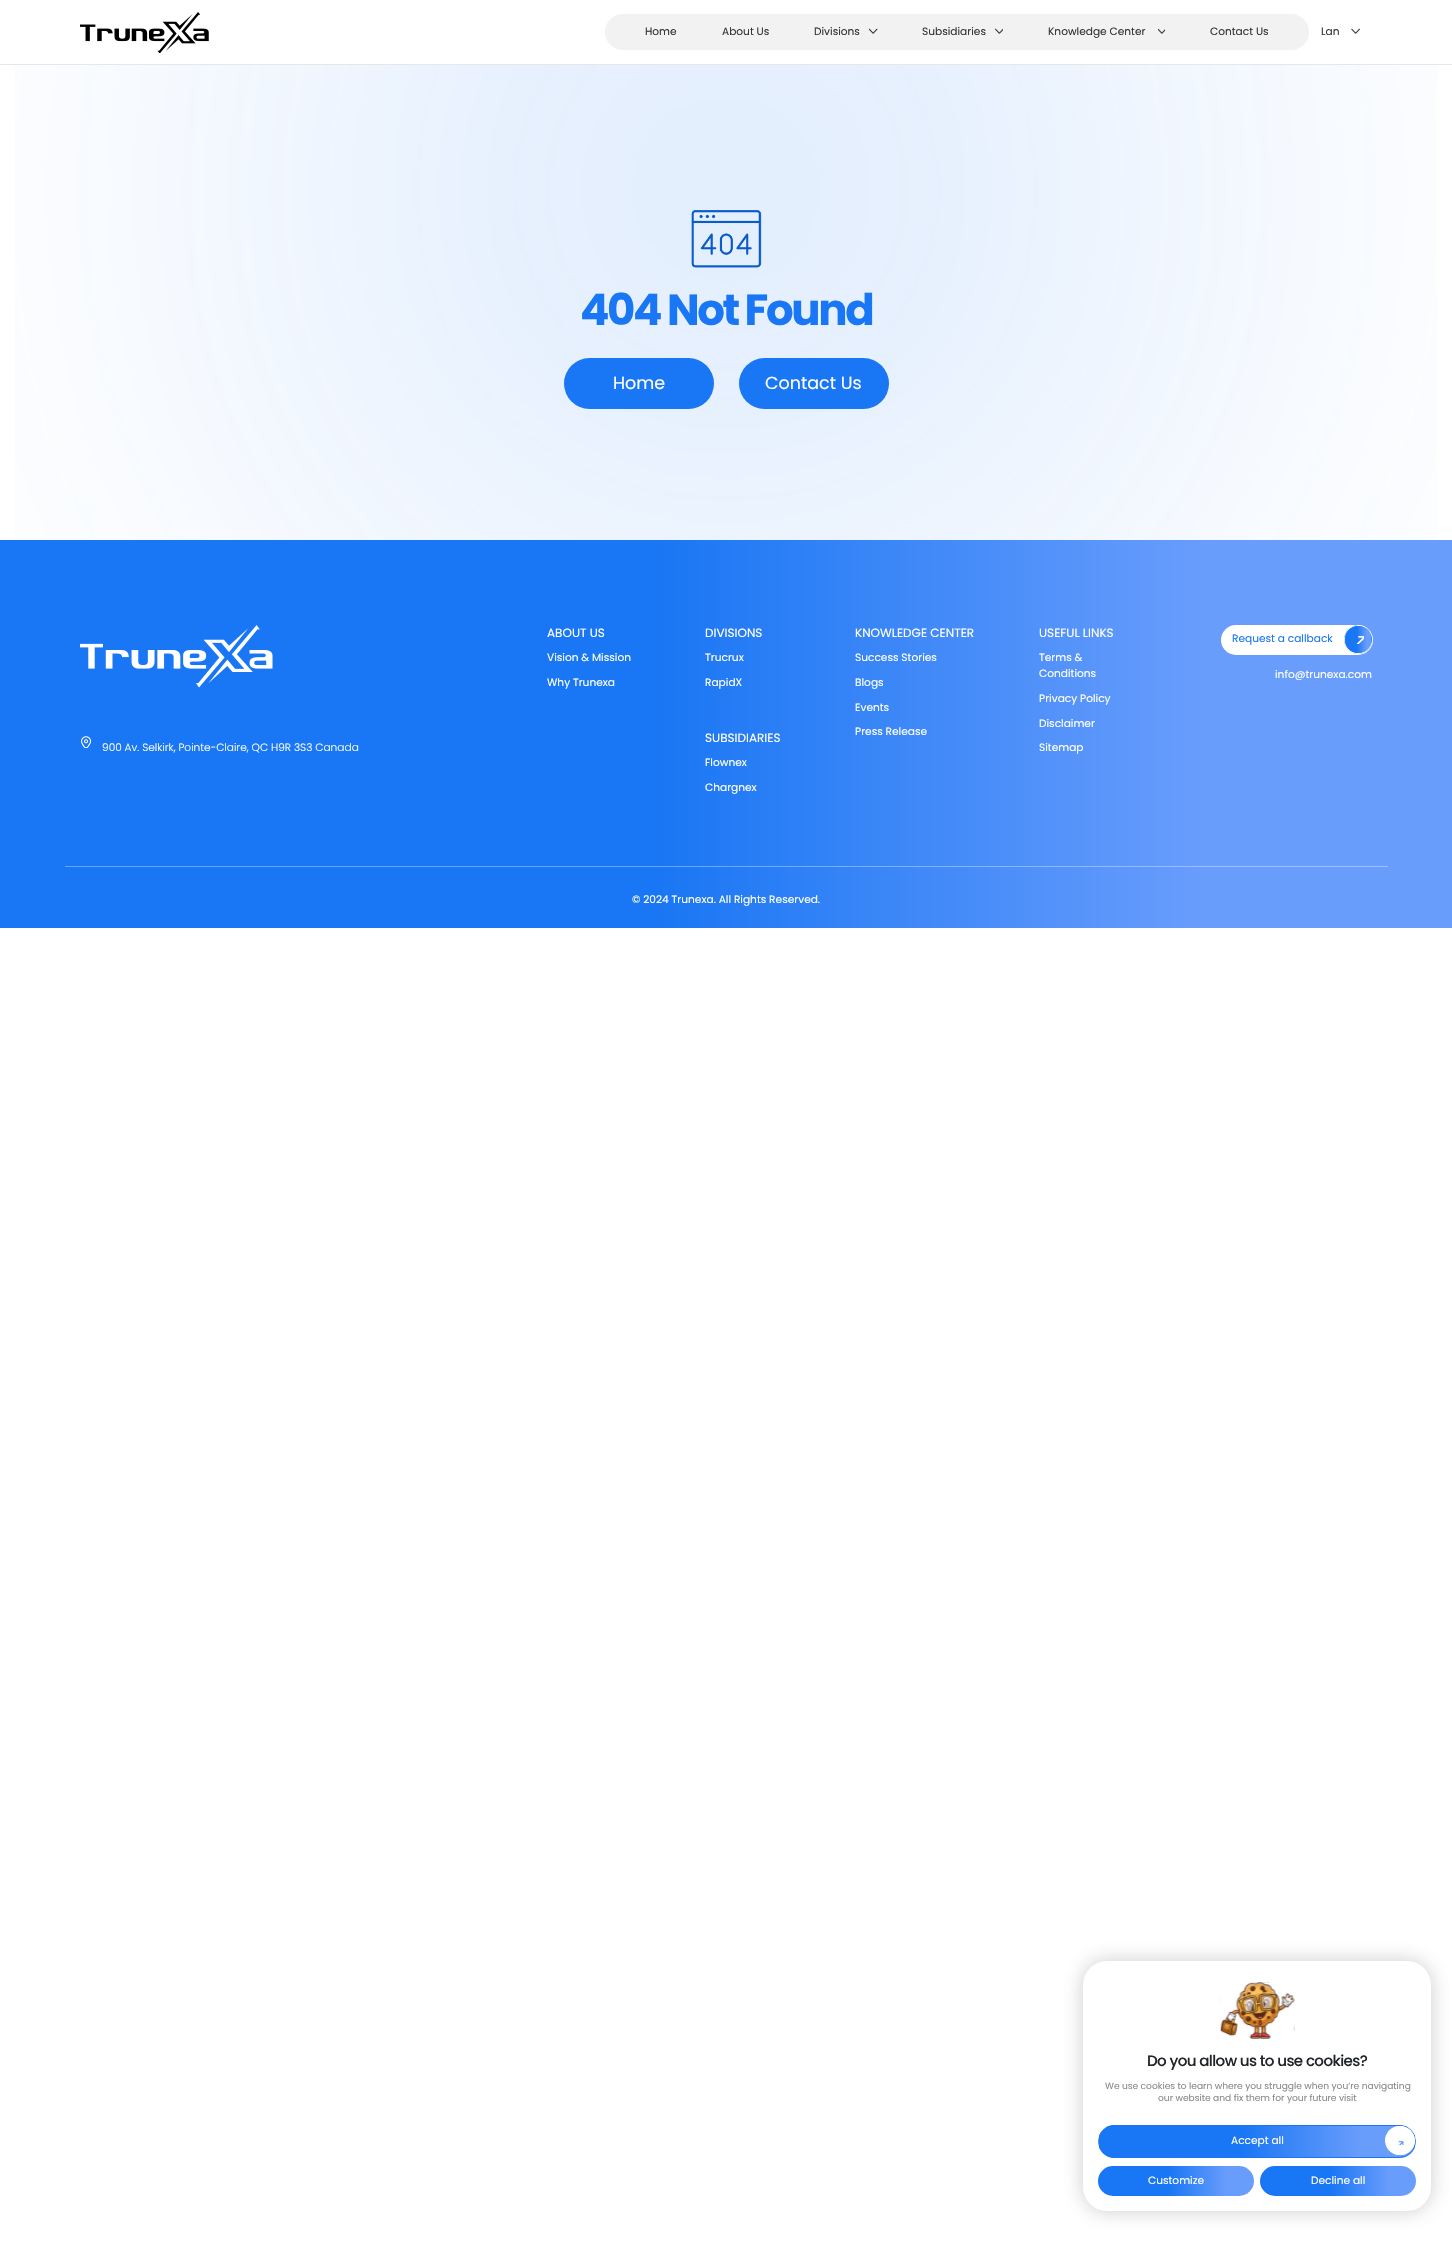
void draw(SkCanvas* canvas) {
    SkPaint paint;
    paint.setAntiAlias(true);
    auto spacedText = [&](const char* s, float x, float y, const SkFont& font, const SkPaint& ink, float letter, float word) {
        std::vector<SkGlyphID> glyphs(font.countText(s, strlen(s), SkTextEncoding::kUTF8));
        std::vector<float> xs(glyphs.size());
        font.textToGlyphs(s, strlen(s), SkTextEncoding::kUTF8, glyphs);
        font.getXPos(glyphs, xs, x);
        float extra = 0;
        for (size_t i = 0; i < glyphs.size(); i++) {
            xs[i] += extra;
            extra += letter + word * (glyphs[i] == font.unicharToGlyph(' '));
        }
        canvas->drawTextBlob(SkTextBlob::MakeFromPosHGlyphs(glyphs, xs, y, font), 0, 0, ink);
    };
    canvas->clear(0xFFFFFFFF);
    canvas->drawImageRect(SkImages::DeferredFromEncodedData(SkData::MakeFromFileName("img1.png")), SkRect::MakeXYWH(15, 65, 1422, 475), SkSamplingOptions());
    paint.setColor(0xFFE7E7E7);
    canvas->drawRect(SkRect::MakeXYWH(0, 64, 1452, 1), paint);
    canvas->drawImageRect(SkImages::DeferredFromEncodedData(SkData::MakeFromFileName("img2.png")), SkRect::MakeXYWH(80, 12, 129, 41), SkSamplingOptions());
    paint.setColor(0xFFF2F2F2);
    canvas->drawRoundRect(SkRect::MakeXYWH(605, 14, 704, 36), 18, 18, paint);
    SkFont font1(fontMgr->matchFamilyStyle("Poppins", SkFontStyle::Normal()), 10.6f);
    font1.setSubpixel(true);
    paint.setColor(0xFF343434);
    canvas->drawString("Home", 645, 35, font1, paint);
    canvas->drawString("About Us", 722, 35, font1, paint);
    canvas->drawString("Divisions", 814, 35, font1, paint);
    canvas->drawImageRect(SkImages::DeferredFromEncodedData(SkData::MakeFromFileName("img3.png")), SkRect::MakeXYWH(869, 28, 9, 6), SkSamplingOptions());
    canvas->drawString("Subsidiaries", 922, 35, font1, paint);
    canvas->drawImageRect(SkImages::DeferredFromEncodedData(SkData::MakeFromFileName("img4.png")), SkRect::MakeXYWH(995, 28, 8, 6), SkSamplingOptions());
    canvas->drawString("Knowledge Center", 1048, 35, font1, paint);
    canvas->drawImageRect(SkImages::DeferredFromEncodedData(SkData::MakeFromFileName("img5.png")), SkRect::MakeXYWH(1158, 28, 7, 6), SkSamplingOptions());
    canvas->drawString("Contact Us", 1210, 35, font1, paint);
    canvas->drawString("Lan", 1321, 35, font1, paint);
    canvas->drawImageRect(SkImages::DeferredFromEncodedData(SkData::MakeFromFileName("img6.png")), SkRect::MakeXYWH(1351, 28, 9, 6), SkSamplingOptions());
    canvas->drawImageRect(SkImages::DeferredFromEncodedData(SkData::MakeFromFileName("img7.png")), SkRect::MakeXYWH(691, 210, 71, 58), SkSamplingOptions());
    SkFont font2(fontMgr->matchFamilyStyle("Poppins", SkFontStyle::Bold()), 43.5f);
    font2.setSubpixel(true);
    paint.setColor(0xFF1976F4);
    spacedText("404 Not Found", 580, 325, font2, paint, -2.4f, 0);
    canvas->drawRoundRect(SkRect::MakeXYWH(564, 358, 150, 51), 25.5f, 25.5f, paint);
    SkFont font3(fontMgr->matchFamilyStyle("Poppins", SkFontStyle::Normal()), 17.5f);
    font3.setSubpixel(true);
    paint.setColor(0xFFFFFFFF);
    canvas->drawString("Home", 613, 389, font3, paint);
    paint.setColor(0xFF1976F4);
    canvas->drawRoundRect(SkRect::MakeXYWH(739, 358, 150, 51), 25.5f, 25.5f, paint);
    paint.setColor(0xFFFFFFFF);
    canvas->drawString("Contact Us", 765, 389, font3, paint);
    {
        const SkColor colors[] = {0xFF1976F4, 0xFF699DFC};
        const float stops[] = {0.45f, 0.83f};
        const SkPoint ends[] = {{0, 734}, {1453, 734}};
        paint.setShader(SkGradientShader::MakeLinear(ends, colors, stops, 2, SkTileMode::kClamp));
        paint.setAlpha(255);
    }
    canvas->drawRect(SkRect::MakeXYWH(0, 540, 1452, 388), paint);
    SkFont font4(fontMgr->matchFamilyStyle("Poppins", SkFontStyle::Normal()), 12);
    font4.setSubpixel(true);
    paint.setShader(nullptr);
    paint.setColor(0xFFFFFFFF);
    canvas->drawString("ABOUT US", 547, 637, font4, paint);
    canvas->drawString("Vision & Mission", 547, 661, font1, paint);
    canvas->drawString("Why Trunexa", 547, 686, font1, paint);
    canvas->drawString("DIVISIONS", 705, 637, font4, paint);
    canvas->drawString("Trucrux", 705, 661, font1, paint);
    canvas->drawString("RapidX", 705, 686, font1, paint);
    canvas->drawString("SUBSIDIARIES", 705, 742, font4, paint);
    canvas->drawString("Flownex", 705, 766, font1, paint);
    canvas->drawString("Chargnex", 705, 791, font1, paint);
    canvas->drawString("KNOWLEDGE CENTER", 855, 637, font4, paint);
    canvas->drawString("Success Stories", 855, 661, font1, paint);
    canvas->drawString("Blogs", 855, 686, font1, paint);
    canvas->drawString("Events", 855, 711, font1, paint);
    canvas->drawString("Press Release", 855, 735, font1, paint);
    canvas->drawString("USEFUL LINKS", 1039, 637, font4, paint);
    canvas->drawString("Terms &", 1039, 661, font1, paint);
    canvas->drawString("Conditions", 1039, 677, font1, paint);
    canvas->drawString("Privacy Policy", 1039, 702, font1, paint);
    canvas->drawString("Disclaimer", 1039, 727, font1, paint);
    canvas->drawString("Sitemap", 1039, 751, font1, paint);
    canvas->drawRoundRect(SkRect::MakeXYWH(1221, 625, 152, 30), 15, 15, paint);
    canvas->save();
    canvas->clipPath(SkPathBuilder().moveTo(1358.5f, 625).cubicTo(1366.5f, 625, 1373, 631.5f, 1373, 639.5f).cubicTo(1373, 647.5f, 1366.5f, 654, 1358.5f, 654).cubicTo(1350.5f, 654, 1344, 647.5f, 1344, 639.5f).cubicTo(1344, 631.5f, 1350.5f, 625, 1358.5f, 625).close().detach(), true);
    {
        const SkColor colors[] = {0xFF1976F4, 0xFF699DFC};
        const float stops[] = {0.45f, 0.83f};
        const SkPoint ends[] = {{1319, 639}, {1345, 639}};
        paint.setShader(SkGradientShader::MakeLinear(ends, colors, stops, 2, SkTileMode::kClamp));
        paint.setAlpha(255);
    }
    canvas->drawRect(SkRect::MakeXYWH(1344, 634, 1, 11), paint);
    canvas->restore();
    canvas->save();
    canvas->clipPath(SkPathBuilder().moveTo(1236, 625).lineTo(1358, 625).cubicTo(1366.5f, 625, 1373, 631.5f, 1373, 640).cubicTo(1373, 648.5f, 1366.5f, 655, 1358, 655).lineTo(1236, 655).cubicTo(1227.5f, 655, 1221, 648.5f, 1221, 640).cubicTo(1221, 631.5f, 1227.5f, 625, 1236, 625).close().detach(), true);
    canvas->clipPath(SkPathBuilder().moveTo(1358.5f, 625).cubicTo(1366.5f, 625, 1373, 631.5f, 1373, 639.5f).cubicTo(1373, 647.5f, 1366.5f, 654, 1358.5f, 654).cubicTo(1350.5f, 654, 1344, 647.5f, 1344, 639.5f).cubicTo(1344, 631.5f, 1350.5f, 625, 1358.5f, 625).close().detach(), true);
    {
        const SkColor colors[] = {0xFF1976F4, 0xFF699DFC};
        const float stops[] = {0.45f, 0.83f};
        const SkPoint ends[] = {{1345, 639}, {1371, 639}};
        paint.setShader(SkGradientShader::MakeLinear(ends, colors, stops, 2, SkTileMode::kClamp));
        paint.setAlpha(255);
    }
    canvas->drawRect(SkRect::MakeXYWH(1345, 625, 26, 29), paint);
    {
        const SkColor colors[] = {0xFF1976F4, 0xFF699DFC};
        const float stops[] = {0.45f, 0.83f};
        const SkPoint ends[] = {{1371, 639}, {1398, 639}};
        paint.setShader(SkGradientShader::MakeLinear(ends, colors, stops, 2, SkTileMode::kClamp));
        paint.setAlpha(255);
    }
    canvas->drawRect(SkRect::MakeXYWH(1371, 625, 2, 29), paint);
    canvas->restore();
    paint.setShader(nullptr);
    paint.setColor(0xFFFFFFFF);
    canvas->drawPath(SkPathBuilder(SkPathFillType::kEvenOdd).moveTo(1358.5f, 625).cubicTo(1366, 625, 1373, 632, 1373, 639.5f).cubicTo(1373, 647.5f, 1366, 654, 1358.5f, 654).cubicTo(1339.5f, 654, 1339.5f, 625.5f, 1358.5f, 625).close().moveTo(1358.5f, 626).cubicTo(1340.5f, 626, 1340.5f, 653, 1358.5f, 653).cubicTo(1376.5f, 653, 1376.5f, 626, 1358.5f, 626).close().detach(), paint);
    paint.setColor(0xFF1976F4);
    canvas->drawString("Request a callback", 1232, 642, font1, paint);
    {
        const SkColor colors[] = {0xFF1976F4, 0xFF699DFC};
        const float stops[] = {0.45f, 0.83f};
        const SkPoint ends[] = {{1345, 639}, {1371, 639}};
        paint.setShader(SkGradientShader::MakeLinear(ends, colors, stops, 2, SkTileMode::kClamp));
        paint.setAlpha(255);
    }
    canvas->drawRoundRect(SkRect::MakeXYWH(1345, 626, 26, 27), 13, 13, paint);
    canvas->drawImageRect(SkImages::DeferredFromEncodedData(SkData::MakeFromFileName("img8.png")), SkRect::MakeXYWH(1356, 636, 8, 8), SkSamplingOptions());
    paint.setShader(nullptr);
    paint.setColor(0xFFFFFFFF);
    canvas->drawString("info@trunexa.com", 1275, 678, font1, paint);
    canvas->drawImageRect(SkImages::DeferredFromEncodedData(SkData::MakeFromFileName("img9.png")), SkRect::MakeXYWH(80, 625, 193, 63), SkSamplingOptions());
    canvas->drawImageRect(SkImages::DeferredFromEncodedData(SkData::MakeFromFileName("img10.png")), SkRect::MakeXYWH(81, 736, 11, 12), SkSamplingOptions());
    SkFont font5(fontMgr->matchFamilyStyle("Poppins", SkFontStyle(300, SkFontStyle::kNormal_Width, SkFontStyle::kUpright_Slant)), 10.6f);
    font5.setSubpixel(true);
    canvas->drawString("900 Av. Selkirk, Pointe-Claire, QC H9R 3S3 Canada", 102, 751, font5, paint);
    paint.setColor(0x57FFFFFF);
    canvas->drawRect(SkRect::MakeXYWH(65, 866, 1323, 1), paint);
    paint.setColor(0xFFFFFFFF);
    canvas->drawString("© 2024 Trunexa. All Rights Reserved.", 632, 903, font1, paint);
    paint.setColor(0x4D555555);
    paint.setMaskFilter(SkMaskFilter::MakeBlur(kNormal_SkBlurStyle, 10));
    canvas->drawRoundRect(SkRect::MakeXYWH(1083, 1961, 348, 250), 24, 24, paint);
    paint.setMaskFilter(nullptr);
    paint.setColor(0xFFFFFFFF);
    canvas->drawRoundRect(SkRect::MakeXYWH(1083, 1961, 348, 250), 24, 24, paint);
    canvas->drawImageRect(SkImages::DeferredFromEncodedData(SkData::MakeFromFileName("img11.png")), SkRect::MakeXYWH(1220, 1982, 75, 58), SkSamplingOptions());
    SkFont font6(fontMgr->matchFamilyStyle("Poppins", SkFontStyle(500, SkFontStyle::kNormal_Width, SkFontStyle::kUpright_Slant)), 15.1f);
    font6.setSubpixel(true);
    paint.setColor(0xFF212529);
    spacedText("Do you allow us to use cookies?", 1147, 2066, font6, paint, -0.6f, 0);
    SkFont font7(fontMgr->matchFamilyStyle("Poppins", SkFontStyle::Normal()), 9.1f);
    font7.setSubpixel(true);
    paint.setColor(0xFF888888);
    canvas->drawString("We use cookies to learn where you struggle when you’re navigating", 1105, 2089, font7, paint);
    canvas->drawString("our website and fix them for your future visit", 1158, 2101, font7, paint);
    canvas->save();
    canvas->clipPath(SkPathBuilder().moveTo(1114.5f, 2125).lineTo(1399.5f, 2125).cubicTo(1408.5f, 2125, 1416, 2132.5f, 1416, 2141.5f).cubicTo(1416, 2150.5f, 1408.5f, 2158, 1399.5f, 2158).lineTo(1114.5f, 2158).cubicTo(1105.5f, 2158, 1098, 2150.5f, 1098, 2141.5f).cubicTo(1098, 2132.5f, 1105.5f, 2125, 1114.5f, 2125).close().detach(), true);
    {
        const SkColor colors[] = {0xFF1976F4, 0xFF699DFC};
        const float stops[] = {0.45f, 0.83f};
        const SkPoint ends[] = {{1099, 2141}, {1415, 2141}};
        paint.setShader(SkGradientShader::MakeLinear(ends, colors, stops, 2, SkTileMode::kClamp));
        paint.setAlpha(255);
    }
    canvas->drawRect(SkRect::MakeXYWH(1099, 2125, 316, 33), paint);
    canvas->restore();
    paint.setStyle(SkPaint::kStroke_Style);
    paint.setStrokeWidth(1);
    paint.setShader(nullptr);
    paint.setColor(0xFF1976F4);
    canvas->drawRoundRect(SkRect::MakeXYWH(1098.5f, 2125.5f, 317, 32), 16, 16, paint);
    canvas->save();
    canvas->clipPath(SkPathBuilder().moveTo(1114, 2126).lineTo(1400, 2126).cubicTo(1408.5f, 2126, 1415, 2132.5f, 1415, 2141).cubicTo(1415, 2149.5f, 1408.5f, 2156, 1400, 2156).lineTo(1114, 2156).cubicTo(1105.5f, 2156, 1099, 2149.5f, 1099, 2141).cubicTo(1099, 2132.5f, 1105.5f, 2126, 1114, 2126).close().detach(), true);
    paint.setStyle(SkPaint::kFill_Style);
    paint.setColor(0xFFFFFFFF);
    canvas->drawCircle(1400.5f, 2140.5f, 14.5f, paint);
    canvas->restore();
    canvas->drawPath(SkPathBuilder(SkPathFillType::kEvenOdd).moveTo(1400.5f, 2126).cubicTo(1408, 2126, 1415, 2133, 1415, 2140.5f).cubicTo(1415, 2148.5f, 1408, 2155, 1400.5f, 2155).cubicTo(1381.5f, 2155, 1381.5f, 2126.5f, 1400.5f, 2126).close().moveTo(1400.5f, 2127).cubicTo(1382.5f, 2127, 1382.5f, 2154, 1400.5f, 2154).cubicTo(1418.5f, 2154, 1418.5f, 2127, 1400.5f, 2127).close().detach(), paint);
    canvas->save();
    canvas->clipPath(SkPathBuilder().moveTo(1114, 2126).lineTo(1400, 2126).cubicTo(1408.5f, 2126, 1415, 2132.5f, 1415, 2141).cubicTo(1415, 2149.5f, 1408.5f, 2156, 1400, 2156).lineTo(1114, 2156).cubicTo(1105.5f, 2156, 1099, 2149.5f, 1099, 2141).cubicTo(1099, 2132.5f, 1105.5f, 2126, 1114, 2126).close().detach(), true);
    canvas->drawCircle(1399.5f, 2140.5f, 14.5f, paint);
    canvas->restore();
    canvas->drawImageRect(SkImages::DeferredFromEncodedData(SkData::MakeFromFileName("img12.png")), SkRect::MakeXYWH(1398, 2141, 6, 4), SkSamplingOptions());
    canvas->drawString("Accept all", 1231, 2144, font1, paint);
    {
        const SkColor colors[] = {0xFF1976F4, 0xFF699DFC};
        const float stops[] = {0.45f, 0.83f};
        const SkPoint ends[] = {{1098, 2181}, {1254, 2181}};
        paint.setShader(SkGradientShader::MakeLinear(ends, colors, stops, 2, SkTileMode::kClamp));
        paint.setAlpha(255);
    }
    canvas->drawRoundRect(SkRect::MakeXYWH(1098, 2166, 156, 30), 15, 15, paint);
    paint.setShader(nullptr);
    paint.setColor(0xFFFFFFFF);
    canvas->drawString("Customize", 1148, 2184, font1, paint);
    {
        const SkColor colors[] = {0xFF1976F4, 0xFF699DFC};
        const float stops[] = {0.45f, 0.83f};
        const SkPoint ends[] = {{1260, 2181}, {1416, 2181}};
        paint.setShader(SkGradientShader::MakeLinear(ends, colors, stops, 2, SkTileMode::kClamp));
        paint.setAlpha(255);
    }
    canvas->drawRoundRect(SkRect::MakeXYWH(1260, 2166, 156, 30), 15, 15, paint);
    paint.setShader(nullptr);
    paint.setColor(0xFFFFFFFF);
    canvas->drawString("Decline all", 1311, 2184, font1, paint);
}
